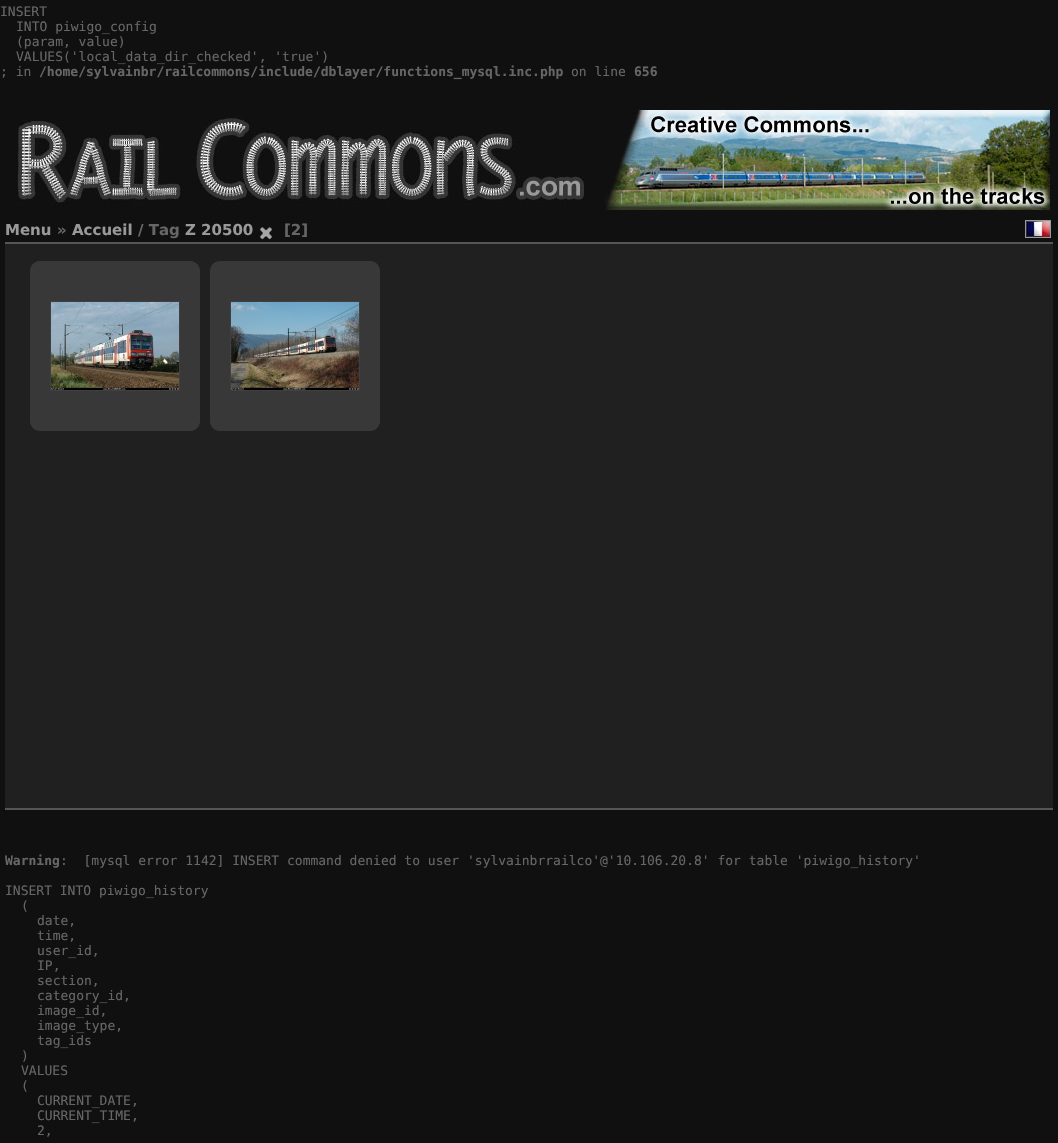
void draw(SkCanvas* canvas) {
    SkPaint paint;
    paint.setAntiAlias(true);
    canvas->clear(0xFF101010);
    SkFont font1(fontMgr->matchFamilyStyle("DejaVu Sans Mono", SkFontStyle::Normal()), 13);
    font1.setSubpixel(true);
    paint.setColor(0xFF666666);
    canvas->drawString("INSERT", 0, 16, font1, paint);
    canvas->drawString("INTO piwigo_config", 16, 31, font1, paint);
    canvas->drawString("(param, value)", 16, 46, font1, paint);
    canvas->drawString("VALUES('local_data_dir_checked', 'true')", 16, 61, font1, paint);
    canvas->drawString("; in", 0, 76, font1, paint);
    SkFont font2(fontMgr->matchFamilyStyle("DejaVu Sans Mono", SkFontStyle::Bold()), 13);
    font2.setSubpixel(true);
    canvas->drawString("/home/sylvainbr/railcommons/include/dblayer/functions_mysql.inc.php", 39, 76, font2, paint);
    canvas->drawString("on line", 571, 76, font1, paint);
    canvas->drawString("656", 634, 76, font2, paint);
    canvas->drawImageRect(SkImages::DeferredFromEncodedData(SkData::MakeFromFileName("img1.png")), SkRect::MakeXYWH(17, 118, 570, 88), SkSamplingOptions());
    canvas->drawImageRect(SkImages::DeferredFromEncodedData(SkData::MakeFromFileName("img2.png")), SkRect::MakeXYWH(605, 110, 445, 100), SkSamplingOptions());
    SkFont font3(fontMgr->matchFamilyStyle("DejaVu Sans", SkFontStyle::Bold()), 15);
    font3.setSubpixel(true);
    paint.setColor(0xFF999999);
    canvas->drawString("Menu", 5, 235, font3, paint);
    paint.setColor(0xFF666666);
    canvas->drawString("»", 57, 235, font3, paint);
    paint.setColor(0xFF999999);
    canvas->drawString("Accueil", 72, 235, font3, paint);
    paint.setColor(0xFF666666);
    canvas->drawString("/ Tag", 138, 235, font3, paint);
    paint.setColor(0xFF999999);
    canvas->drawString("Z 20500", 185, 235, font3, paint);
    canvas->drawImageRect(SkImages::DeferredFromEncodedData(SkData::MakeFromFileName("img3.png")), SkRect::MakeXYWH(260, 227, 12, 13), SkSamplingOptions());
    paint.setColor(0xFF666666);
    canvas->drawString("[2]", 284, 235, font3, paint);
    paint.setStyle(SkPaint::kStroke_Style);
    paint.setStrokeWidth(1);
    paint.setColor(0xFF999999);
    canvas->drawRect(SkRect::MakeXYWH(1025.5f, 220.5f, 25, 17), paint);
    canvas->drawImageRect(SkImages::DeferredFromEncodedData(SkData::MakeFromFileName("img4.png")), SkRect::MakeXYWH(1026, 221, 24, 16), SkSamplingOptions());
    paint.setStyle(SkPaint::kFill_Style);
    paint.setColor(0xFF202020);
    canvas->drawRect(SkRect::MakeXYWH(5, 244, 1048, 564), paint);
    paint.setColor(0xFF555555);
    canvas->drawRect(SkRect::MakeXYWH(5, 242, 1048, 2), paint);
    canvas->drawRect(SkRect::MakeXYWH(5, 808, 1048, 2), paint);
    canvas->drawImageRect(SkImages::DeferredFromEncodedData(SkData::MakeFromFileName("img5.png")), SkRect::MakeXYWH(30, 261, 170, 170), SkSamplingOptions());
    paint.setStyle(SkPaint::kStroke_Style);
    paint.setColor(0xFF404040);
    canvas->drawRect(SkRect::MakeXYWH(50.5f, 301.5f, 129, 89), paint);
    canvas->drawImageRect(SkImages::DeferredFromEncodedData(SkData::MakeFromFileName("img6.png")), SkRect::MakeXYWH(51, 302, 128, 88), SkSamplingOptions());
    canvas->drawImageRect(SkImages::DeferredFromEncodedData(SkData::MakeFromFileName("img5.png")), SkRect::MakeXYWH(210, 261, 170, 170), SkSamplingOptions());
    canvas->drawRect(SkRect::MakeXYWH(230.5f, 301.5f, 129, 89), paint);
    canvas->drawImageRect(SkImages::DeferredFromEncodedData(SkData::MakeFromFileName("img7.png")), SkRect::MakeXYWH(231, 302, 128, 88), SkSamplingOptions());
    paint.setStyle(SkPaint::kFill_Style);
    paint.setColor(0xFF666666);
    canvas->drawString("Warning", 5, 865, font2, paint);
    canvas->drawString(":  [mysql error 1142] INSERT command denied to user 'sylvainbrrailco'@'10.106.20.8' for table 'piwigo_history'", 60, 865, font1, paint);
    canvas->drawString("INSERT INTO piwigo_history", 5, 895, font1, paint);
    canvas->drawString("(", 21, 910, font1, paint);
    canvas->drawString("date,", 37, 925, font1, paint);
    canvas->drawString("time,", 37, 940, font1, paint);
    canvas->drawString("user_id,", 37, 955, font1, paint);
    canvas->drawString("IP,", 37, 970, font1, paint);
    canvas->drawString("section,", 37, 985, font1, paint);
    canvas->drawString("category_id,", 37, 1000, font1, paint);
    canvas->drawString("image_id,", 37, 1015, font1, paint);
    canvas->drawString("image_type,", 37, 1030, font1, paint);
    canvas->drawString("tag_ids", 37, 1045, font1, paint);
    canvas->drawString(")", 21, 1060, font1, paint);
    canvas->drawString("VALUES", 21, 1075, font1, paint);
    canvas->drawString("(", 21, 1090, font1, paint);
    canvas->drawString("CURRENT_DATE,", 37, 1105, font1, paint);
    canvas->drawString("CURRENT_TIME,", 37, 1120, font1, paint);
    canvas->drawString("2,", 37, 1135, font1, paint);
}
